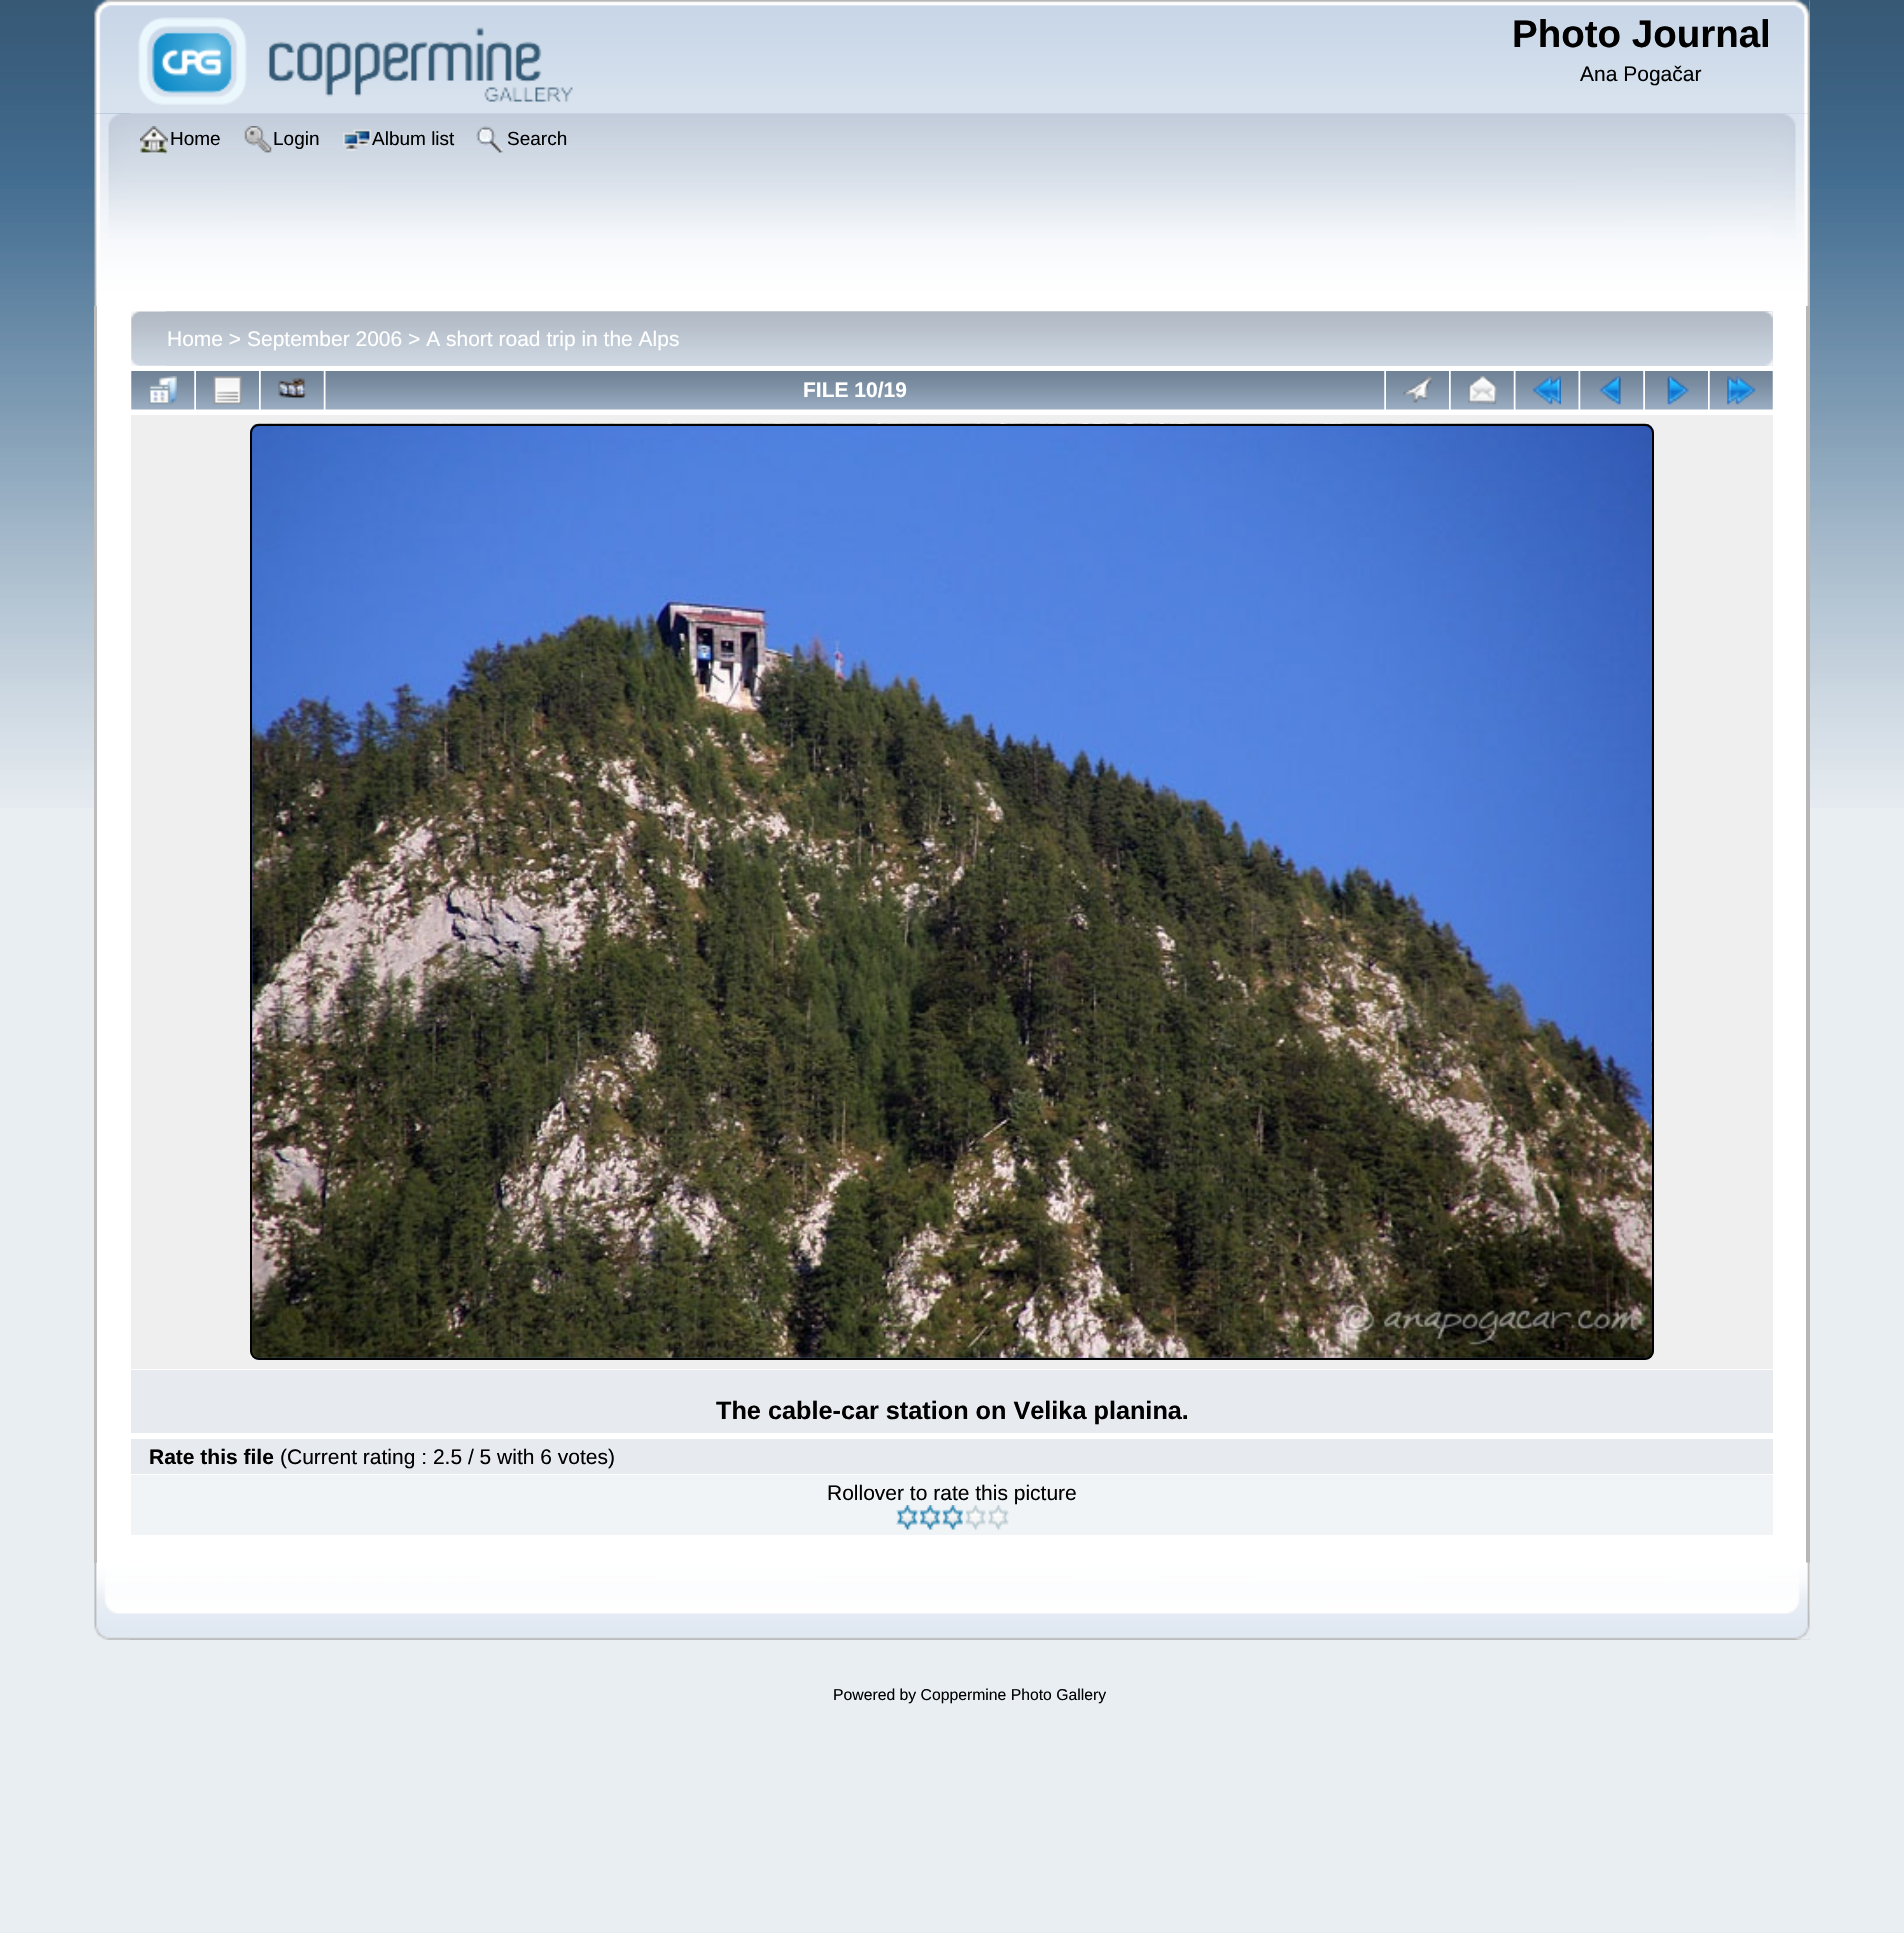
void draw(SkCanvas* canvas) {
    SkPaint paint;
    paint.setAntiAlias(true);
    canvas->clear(0xFFE9EEF2);
    canvas->drawImageRect(SkImages::DeferredFromEncodedData(SkData::MakeFromFileName("img1.png")), SkRect::MakeXYWH(0, 0, 1904, 808), SkSamplingOptions());
    canvas->drawImageRect(SkImages::DeferredFromEncodedData(SkData::MakeFromFileName("img2.png")), SkRect::MakeXYWH(94, 0, 1716, 114), SkSamplingOptions());
    canvas->drawImageRect(SkImages::DeferredFromEncodedData(SkData::MakeFromFileName("img3.png")), SkRect::MakeXYWH(130, 0, 1680, 114), SkSamplingOptions());
    canvas->drawImageRect(SkImages::DeferredFromEncodedData(SkData::MakeFromFileName("img4.png")), SkRect::MakeXYWH(138, 17, 435, 88), SkSamplingOptions());
    SkFont font1(fontMgr->matchFamilyStyle("Liberation Sans", SkFontStyle::Bold()), 38.5f);
    font1.setSubpixel(true);
    paint.setColor(0xFF000000);
    canvas->drawString("Photo Journal", 1512, 47, font1, paint);
    SkFont font2(fontMgr->matchFamilyStyle("Liberation Sans", SkFontStyle::Normal()), 21);
    font2.setSubpixel(true);
    canvas->drawString("Ana Pogačar", 1580, 81, font2, paint);
    canvas->drawImageRect(SkImages::DeferredFromEncodedData(SkData::MakeFromFileName("img5.png")), SkRect::MakeXYWH(94, 113, 1716, 193), SkSamplingOptions());
    canvas->drawImageRect(SkImages::DeferredFromEncodedData(SkData::MakeFromFileName("img6.png")), SkRect::MakeXYWH(129, 113, 1681, 193), SkSamplingOptions());
    canvas->drawImageRect(SkImages::DeferredFromEncodedData(SkData::MakeFromFileName("img7.png")), SkRect::MakeXYWH(140, 126, 28, 28), SkSamplingOptions());
    SkFont font3(fontMgr->matchFamilyStyle("Liberation Sans", SkFontStyle::Normal()), 19);
    font3.setSubpixel(true);
    canvas->drawString("Home", 170, 145, font3, paint);
    canvas->drawImageRect(SkImages::DeferredFromEncodedData(SkData::MakeFromFileName("img8.png")), SkRect::MakeXYWH(244, 126, 28, 27), SkSamplingOptions());
    canvas->drawString("Login", 273, 145, font3, paint);
    canvas->drawImageRect(SkImages::DeferredFromEncodedData(SkData::MakeFromFileName("img9.png")), SkRect::MakeXYWH(343, 129, 28, 22), SkSamplingOptions());
    canvas->drawString("Album list", 372, 145, font3, paint);
    canvas->drawImageRect(SkImages::DeferredFromEncodedData(SkData::MakeFromFileName("img10.png")), SkRect::MakeXYWH(476, 126, 28, 27), SkSamplingOptions());
    canvas->drawString("Search", 507, 145, font3, paint);
    paint.setColor(0xFFFFFFFF);
    canvas->drawRect(SkRect::MakeXYWH(97, 306, 1709, 1257), paint);
    paint.setColor(0xFFBCBCBC);
    canvas->drawRect(SkRect::MakeXYWH(94, 306, 3, 1257), paint);
    paint.setColor(0xFFB7B7B7);
    canvas->drawRect(SkRect::MakeXYWH(1806, 306, 4, 1257), paint);
    canvas->drawImageRect(SkImages::DeferredFromEncodedData(SkData::MakeFromFileName("img11.png")), SkRect::MakeXYWH(131, 311, 1642, 55), SkSamplingOptions());
    canvas->drawImageRect(SkImages::DeferredFromEncodedData(SkData::MakeFromFileName("img12.png")), SkRect::MakeXYWH(166, 311, 1607, 55), SkSamplingOptions());
    paint.setColor(0xFFFFFFFF);
    canvas->drawString("Home > September 2006 > A short road trip in the Alps", 167, 346, font2, paint);
    canvas->drawImageRect(SkImages::DeferredFromEncodedData(SkData::MakeFromFileName("img13.png")), SkRect::MakeXYWH(131, 371, 64, 39), SkSamplingOptions());
    canvas->drawImageRect(SkImages::DeferredFromEncodedData(SkData::MakeFromFileName("img14.png")), SkRect::MakeXYWH(149, 376, 28, 29), SkSamplingOptions());
    canvas->drawImageRect(SkImages::DeferredFromEncodedData(SkData::MakeFromFileName("img15.png")), SkRect::MakeXYWH(196, 371, 63, 39), SkSamplingOptions());
    canvas->drawImageRect(SkImages::DeferredFromEncodedData(SkData::MakeFromFileName("img16.png")), SkRect::MakeXYWH(213, 376, 29, 29), SkSamplingOptions());
    canvas->drawImageRect(SkImages::DeferredFromEncodedData(SkData::MakeFromFileName("img17.png")), SkRect::MakeXYWH(260, 371, 64, 39), SkSamplingOptions());
    canvas->drawImageRect(SkImages::DeferredFromEncodedData(SkData::MakeFromFileName("img18.png")), SkRect::MakeXYWH(278, 377, 29, 22), SkSamplingOptions());
    canvas->drawImageRect(SkImages::DeferredFromEncodedData(SkData::MakeFromFileName("img19.png")), SkRect::MakeXYWH(325, 371, 1060, 39), SkSamplingOptions());
    SkFont font4(fontMgr->matchFamilyStyle("Liberation Sans", SkFontStyle::Bold()), 21);
    font4.setSubpixel(true);
    canvas->drawString("FILE 10/19", 803, 397, font4, paint);
    canvas->drawImageRect(SkImages::DeferredFromEncodedData(SkData::MakeFromFileName("img15.png")), SkRect::MakeXYWH(1386, 371, 63, 39), SkSamplingOptions());
    canvas->drawImageRect(SkImages::DeferredFromEncodedData(SkData::MakeFromFileName("img20.png")), SkRect::MakeXYWH(1403, 376, 29, 27), SkSamplingOptions());
    canvas->drawImageRect(SkImages::DeferredFromEncodedData(SkData::MakeFromFileName("img17.png")), SkRect::MakeXYWH(1450, 371, 64, 39), SkSamplingOptions());
    canvas->drawImageRect(SkImages::DeferredFromEncodedData(SkData::MakeFromFileName("img21.png")), SkRect::MakeXYWH(1468, 376, 29, 29), SkSamplingOptions());
    canvas->drawImageRect(SkImages::DeferredFromEncodedData(SkData::MakeFromFileName("img22.png")), SkRect::MakeXYWH(1515, 371, 64, 39), SkSamplingOptions());
    canvas->drawImageRect(SkImages::DeferredFromEncodedData(SkData::MakeFromFileName("img23.png")), SkRect::MakeXYWH(1533, 376, 28, 29), SkSamplingOptions());
    canvas->drawImageRect(SkImages::DeferredFromEncodedData(SkData::MakeFromFileName("img13.png")), SkRect::MakeXYWH(1580, 371, 64, 39), SkSamplingOptions());
    canvas->drawImageRect(SkImages::DeferredFromEncodedData(SkData::MakeFromFileName("img24.png")), SkRect::MakeXYWH(1599, 376, 22, 29), SkSamplingOptions());
    canvas->drawImageRect(SkImages::DeferredFromEncodedData(SkData::MakeFromFileName("img15.png")), SkRect::MakeXYWH(1645, 371, 63, 39), SkSamplingOptions());
    canvas->drawImageRect(SkImages::DeferredFromEncodedData(SkData::MakeFromFileName("img25.png")), SkRect::MakeXYWH(1667, 376, 23, 29), SkSamplingOptions());
    canvas->drawImageRect(SkImages::DeferredFromEncodedData(SkData::MakeFromFileName("img17.png")), SkRect::MakeXYWH(1709, 371, 64, 39), SkSamplingOptions());
    canvas->drawImageRect(SkImages::DeferredFromEncodedData(SkData::MakeFromFileName("img26.png")), SkRect::MakeXYWH(1727, 376, 29, 29), SkSamplingOptions());
    paint.setColor(0xFFEFEFEF);
    canvas->drawRect(SkRect::MakeXYWH(131, 415, 1642, 954), paint);
    canvas->drawImageRect(SkImages::DeferredFromEncodedData(SkData::MakeFromFileName("img27.png")), SkRect::MakeXYWH(250, 423, 1404, 937), SkSamplingOptions());
    paint.setStyle(SkPaint::kStroke_Style);
    paint.setStrokeWidth(2);
    paint.setColor(0xFF000000);
    canvas->drawRoundRect(SkRect::MakeXYWH(251, 425, 1402, 934), 8, 8, paint);
    paint.setStyle(SkPaint::kFill_Style);
    paint.setColor(0xFFE7EAEF);
    canvas->drawRect(SkRect::MakeXYWH(131, 1370, 1642, 63), paint);
    SkFont font5(fontMgr->matchFamilyStyle("Liberation Sans", SkFontStyle::Bold()), 25.25f);
    font5.setSubpixel(true);
    paint.setColor(0xFF000000);
    canvas->drawString("The cable-car station on Velika planina.", 716, 1419, font5, paint);
    paint.setColor(0xFFE7EAEF);
    canvas->drawRect(SkRect::MakeXYWH(131, 1439, 1642, 35), paint);
    paint.setColor(0xFF000000);
    canvas->drawString("Rate this file", 149, 1464, font4, paint);
    canvas->drawString("(Current rating : 2.5 / 5 with 6 votes)", 280, 1464, font2, paint);
    paint.setColor(0xFFF0F4F7);
    canvas->drawRect(SkRect::MakeXYWH(131, 1475, 1642, 60), paint);
    paint.setColor(0xFF000000);
    canvas->drawString("Rollover to rate this picture", 827, 1500, font2, paint);
    canvas->drawImageRect(SkImages::DeferredFromEncodedData(SkData::MakeFromFileName("img28.png")), SkRect::MakeXYWH(896, 1505, 23, 25), SkSamplingOptions());
    canvas->drawImageRect(SkImages::DeferredFromEncodedData(SkData::MakeFromFileName("img29.png")), SkRect::MakeXYWH(918, 1505, 24, 25), SkSamplingOptions());
    canvas->drawImageRect(SkImages::DeferredFromEncodedData(SkData::MakeFromFileName("img30.png")), SkRect::MakeXYWH(941, 1505, 23, 25), SkSamplingOptions());
    canvas->drawImageRect(SkImages::DeferredFromEncodedData(SkData::MakeFromFileName("img31.png")), SkRect::MakeXYWH(964, 1505, 23, 25), SkSamplingOptions());
    canvas->drawImageRect(SkImages::DeferredFromEncodedData(SkData::MakeFromFileName("img32.png")), SkRect::MakeXYWH(987, 1505, 23, 25), SkSamplingOptions());
    canvas->drawImageRect(SkImages::DeferredFromEncodedData(SkData::MakeFromFileName("img33.png")), SkRect::MakeXYWH(94, 1562, 1716, 78), SkSamplingOptions());
    canvas->drawImageRect(SkImages::DeferredFromEncodedData(SkData::MakeFromFileName("img34.png")), SkRect::MakeXYWH(129, 1562, 1681, 78), SkSamplingOptions());
    SkFont font6(fontMgr->matchFamilyStyle("Liberation Sans", SkFontStyle::Normal()), 15.75f);
    font6.setSubpixel(true);
    canvas->drawString("Powered by Coppermine Photo Gallery", 833, 1700, font6, paint);
}
